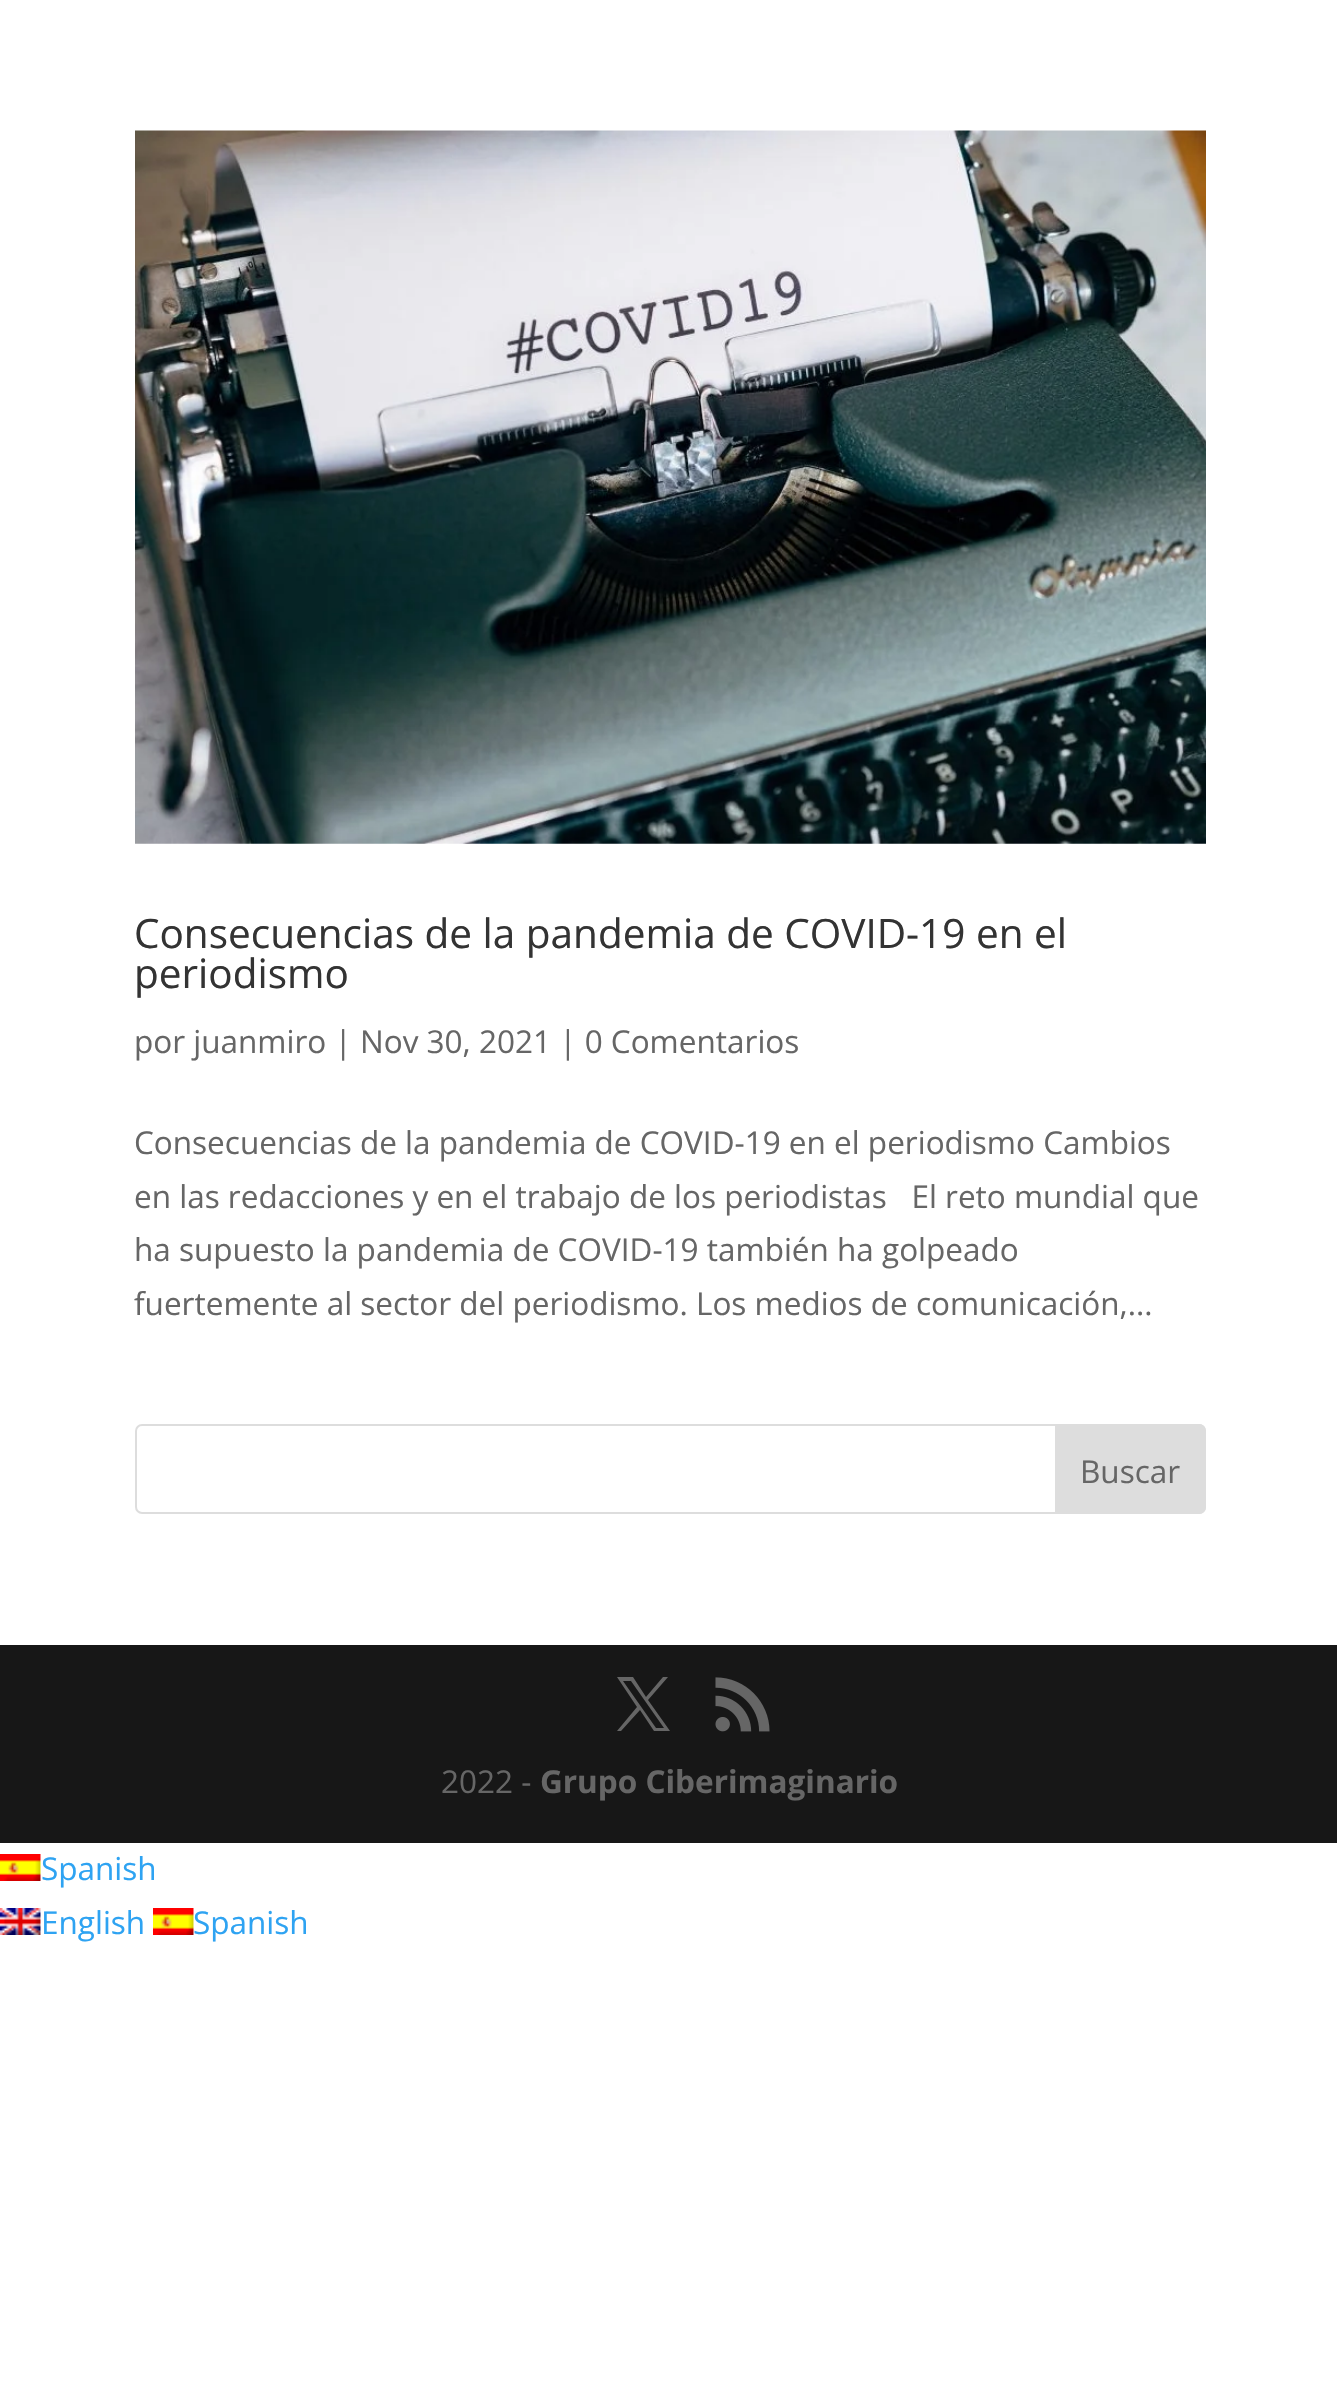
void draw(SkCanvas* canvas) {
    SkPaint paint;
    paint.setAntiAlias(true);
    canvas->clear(0xFFFFFFFF);
    canvas->drawImageRect(SkImages::DeferredFromEncodedData(SkData::MakeFromFileName("img1.png")), SkRect::MakeXYWH(135, 130, 1071, 714), SkSamplingOptions());
    SkFont font1(fontMgr->matchFamilyStyle("Open Sans", SkFontStyle::Normal()), 40.5f);
    font1.setSubpixel(true);
    paint.setColor(0xFF333333);
    canvas->drawString("Consecuencias de la pandemia de COVID-19 en el", 134, 948, font1, paint);
    canvas->drawString("periodismo", 134, 988, font1, paint);
    SkFont font2(fontMgr->matchFamilyStyle("Open Sans", SkFontStyle::Normal()), 31.5f);
    font2.setSubpixel(true);
    paint.setColor(0xFF666666);
    canvas->drawString("por juanmiro | Nov 30, 2021 | 0 Comentarios", 134, 1053, font2, paint);
    canvas->drawString("Consecuencias de la pandemia de COVID-19 en el periodismo Cambios", 134, 1154, font2, paint);
    canvas->drawString("en las redacciones y en el trabajo de los periodistas   El reto mundial que", 134, 1208, font2, paint);
    canvas->drawString("ha supuesto la pandemia de COVID-19 también ha golpeado", 134, 1261, font2, paint);
    canvas->drawString("fuertemente al sector del periodismo. Los medios de comunicación,...", 134, 1315, font2, paint);
    paint.setStyle(SkPaint::kStroke_Style);
    paint.setStrokeWidth(2);
    paint.setColor(0xFFDDDDDD);
    canvas->drawRoundRect(SkRect::MakeXYWH(136, 1425, 1069, 88), 6, 6, paint);
    paint.setStyle(SkPaint::kFill_Style);
    canvas->drawPath(SkPathBuilder().moveTo(1056, 1425).lineTo(1199, 1425).cubicTo(1202.5f, 1425, 1205, 1427.5f, 1205, 1431).lineTo(1205, 1507).cubicTo(1205, 1510.5f, 1202.5f, 1513, 1199, 1513).lineTo(1056, 1513).close().detach(), paint);
    paint.setStyle(SkPaint::kStroke_Style);
    canvas->drawPath(SkPathBuilder().moveTo(1056, 1425).lineTo(1199, 1425).cubicTo(1202.5f, 1425, 1205, 1427.5f, 1205, 1431).lineTo(1205, 1507).cubicTo(1205, 1510.5f, 1202.5f, 1513, 1199, 1513).lineTo(1056, 1513).close().detach(), paint);
    paint.setStyle(SkPaint::kFill_Style);
    paint.setColor(0xFF666666);
    canvas->drawString("Buscar", 1080, 1483, font2, paint);
    paint.setColor(0xFF171717);
    canvas->drawRect(SkRect::MakeXYWH(0, 1645, 1337, 198), paint);
    paint.setColor(0xFF666666);
    canvas->drawPath(SkPathBuilder().moveTo(617, 1677).lineTo(637, 1707).lineTo(617, 1731).lineTo(621, 1731).lineTo(640, 1710).lineTo(654, 1731).lineTo(670, 1731).lineTo(648, 1700).lineTo(668, 1677).lineTo(663, 1677).lineTo(646, 1697).lineTo(633, 1677).close().moveTo(623, 1681).lineTo(631, 1681).lineTo(664, 1728).lineTo(656, 1728).close().detach(), paint);
    canvas->drawImageRect(SkImages::DeferredFromEncodedData(SkData::MakeFromFileName("img2.png")), SkRect::MakeXYWH(715, 1677, 55, 55), SkSamplingOptions());
    canvas->drawString("2022 -", 441, 1793, font2, paint);
    SkFont font3(fontMgr->matchFamilyStyle("Open Sans", SkFontStyle::Bold()), 31.5f);
    font3.setSubpixel(true);
    canvas->drawString("Grupo Ciberimaginario", 540, 1793, font3, paint);
    canvas->drawImageRect(SkImages::DeferredFromEncodedData(SkData::MakeFromFileName("img3.png")), SkRect::MakeXYWH(0, 1854, 41, 27), SkSamplingOptions());
    paint.setColor(0xFF2EA3F2);
    canvas->drawString("Spanish", 41, 1880, font2, paint);
    canvas->drawImageRect(SkImages::DeferredFromEncodedData(SkData::MakeFromFileName("img4.png")), SkRect::MakeXYWH(0, 1908, 41, 27), SkSamplingOptions());
    canvas->drawString("English", 41, 1934, font2, paint);
    canvas->drawImageRect(SkImages::DeferredFromEncodedData(SkData::MakeFromFileName("img5.png")), SkRect::MakeXYWH(153, 1908, 41, 27), SkSamplingOptions());
    canvas->drawString("Spanish", 193, 1934, font2, paint);
}
